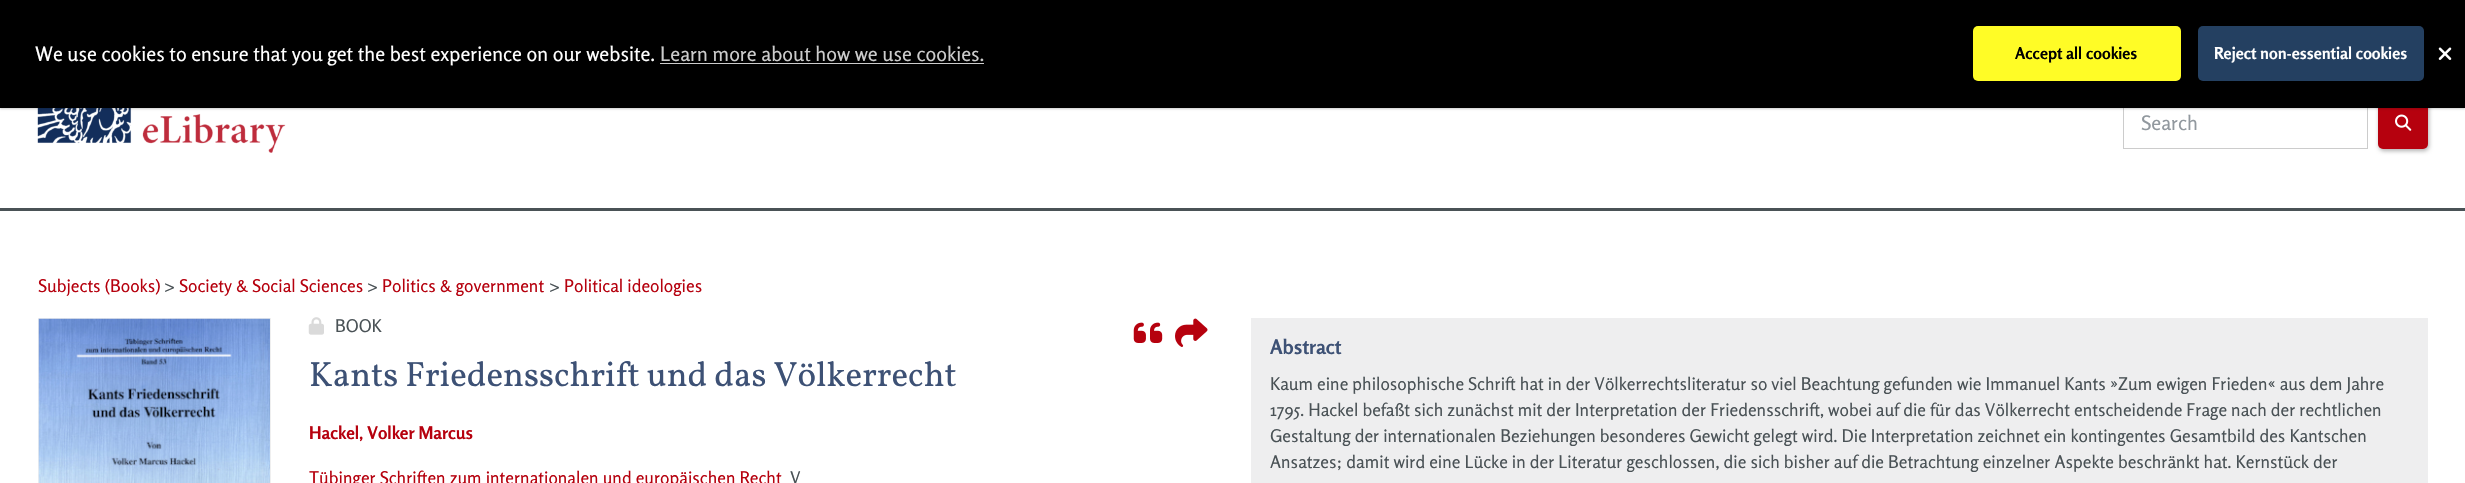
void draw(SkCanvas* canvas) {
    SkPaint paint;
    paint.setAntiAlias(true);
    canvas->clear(0xFFFFFFFF);
    canvas->drawImageRect(SkImages::DeferredFromEncodedData(SkData::MakeFromFileName("img2.png")), SkRect::MakeXYWH(37, 108, 249, 45), SkSamplingOptions());
    paint.setStyle(SkPaint::kStroke_Style);
    paint.setStrokeWidth(1);
    paint.setColor(0xFFCCCCCC);
    canvas->drawRect(SkRect::MakeXYWH(2123.5f, 96.5f, 244, 52), paint);
    paint.setStyle(SkPaint::kFill_Style);
    paint.setColor(0x4D000000);
    paint.setMaskFilter(SkMaskFilter::MakeBlur(kNormal_SkBlurStyle, 2));
    canvas->drawRoundRect(SkRect::MakeXYWH(2379, 98, 50, 53), 5, 5, paint);
    paint.setMaskFilter(nullptr);
    paint.setColor(0xFFB6010E);
    canvas->drawRoundRect(SkRect::MakeXYWH(2378, 95, 50, 54), 5, 5, paint);
    paint.setColor(0x33000000);
    paint.setMaskFilter(SkMaskFilter::MakeBlur(kNormal_SkBlurStyle, 1));
    canvas->drawRect(SkRect::MakeXYWH(0, 1, 2465, 108), paint);
    paint.setMaskFilter(nullptr);
    paint.setColor(0xFF000000);
    canvas->drawRect(SkRect::MakeXYWH(0, 0, 2465, 108), paint);
    SkFont font1(fontMgr->matchFamilyStyle("Rosario", SkFontStyle::Normal()), 20);
    font1.setSubpixel(true);
    paint.setColor(0xFFFFFFFF);
    canvas->drawString("We use cookies to ensure that you get the best experience on our website.", 35, 61, font1, paint);
    paint.setColor(0xFFCCCCCC);
    canvas->drawString("Learn more about how we use cookies.", 660, 61, font1, paint);
    canvas->drawRect(SkRect::MakeXYWH(660, 63, 324, 1), paint);
    paint.setColor(0xFFFFFC26);
    canvas->drawRoundRect(SkRect::MakeXYWH(1973, 26, 208, 55), 5, 5, paint);
    SkFont font2(fontMgr->matchFamilyStyle("Rosario", SkFontStyle::Bold()), 16.25f);
    font2.setSubpixel(true);
    paint.setColor(0xFF000000);
    canvas->drawString("Accept all cookies", 2015, 59, font2, paint);
    paint.setColor(0xFF244061);
    canvas->drawRoundRect(SkRect::MakeXYWH(2198, 26, 226, 55), 5, 5, paint);
    paint.setColor(0xFFFFFFFF);
    canvas->drawString("Reject non-essential cookies", 2214, 59, font2, paint);
    canvas->drawImageRect(SkImages::DeferredFromEncodedData(SkData::MakeFromFileName("img1.png")), SkRect::MakeXYWH(2438, 47, 14, 13), SkSamplingOptions());
    paint.setColor(0xFF4A5256);
    canvas->drawRect(SkRect::MakeXYWH(0, 208, 2465, 3), paint);
    paint.setColor(0xFF91989E);
    canvas->drawString("Search", 2141, 130, font1, paint);
    canvas->drawImageRect(SkImages::DeferredFromEncodedData(SkData::MakeFromFileName("img3.png")), SkRect::MakeXYWH(2395, 114, 17, 17), SkSamplingOptions());
    SkFont font3(fontMgr->matchFamilyStyle("Rosario", SkFontStyle::Normal()), 17.5f);
    font3.setSubpixel(true);
    paint.setColor(0xFFB6010E);
    canvas->drawString("Subjects (Books)", 38, 292, font3, paint);
    paint.setColor(0xFF4A5256);
    canvas->drawString(">", 164, 292, font3, paint);
    paint.setColor(0xFFB6010E);
    canvas->drawString("Society & Social Sciences", 179, 292, font3, paint);
    paint.setColor(0xFF4A5256);
    canvas->drawString(">", 367, 292, font3, paint);
    paint.setColor(0xFFB6010E);
    canvas->drawString("Politics & government", 382, 292, font3, paint);
    paint.setColor(0xFF4A5256);
    canvas->drawString(">", 549, 292, font3, paint);
    paint.setColor(0xFFB6010E);
    canvas->drawString("Political ideologies", 564, 292, font3, paint);
    paint.setStyle(SkPaint::kStroke_Style);
    paint.setColor(0xFFEFEFEF);
    canvas->drawRect(SkRect::MakeXYWH(38.5f, 318.5f, 232, 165), paint);
    canvas->drawImageRect(SkImages::DeferredFromEncodedData(SkData::MakeFromFileName("img4.png")), SkRect::MakeXYWH(38, 318, 232, 165), SkSamplingOptions());
    canvas->drawImageRect(SkImages::DeferredFromEncodedData(SkData::MakeFromFileName("img5.png")), SkRect::MakeXYWH(308, 317, 16, 18), SkSamplingOptions());
    paint.setStyle(SkPaint::kFill_Style);
    paint.setColor(0xFF4A5256);
    canvas->drawString("BOOK", 335, 332, font3, paint);
    canvas->drawImageRect(SkImages::DeferredFromEncodedData(SkData::MakeFromFileName("img6.png")), SkRect::MakeXYWH(1133, 322, 30, 21), SkSamplingOptions());
    canvas->drawImageRect(SkImages::DeferredFromEncodedData(SkData::MakeFromFileName("img7.png")), SkRect::MakeXYWH(1175, 318, 33, 29), SkSamplingOptions());
    SkFont font4(fontMgr->matchFamilyStyle("Vollkorn", SkFontStyle::Normal()), 35);
    font4.setSubpixel(true);
    paint.setColor(0xFF3D5175);
    canvas->drawString("Kants Friedensschrift und das Völkerrecht", 309, 386, font4, paint);
    SkFont font5(fontMgr->matchFamilyStyle("Rosario", SkFontStyle::Bold()), 17.5f);
    font5.setSubpixel(true);
    paint.setColor(0xFFB6010E);
    canvas->drawString("Hackel, Volker Marcus", 309, 439, font5, paint);
    canvas->drawString("Tübinger Schriften zum internationalen und europäischen Recht", 309, 484, font3, paint);
    paint.setColor(0xFF4A5256);
    canvas->drawString("V", 790, 484, font3, paint);
    paint.setColor(0xFFEEEEEF);
    canvas->drawRect(SkRect::MakeXYWH(1251, 318, 1177, 165), paint);
    SkFont font6(fontMgr->matchFamilyStyle("Rosario", SkFontStyle::Bold()), 20);
    font6.setSubpixel(true);
    paint.setColor(0xFF3D5175);
    canvas->drawString("Abstract", 1270, 354, font6, paint);
    paint.setColor(0xFF4A5256);
    canvas->drawString("Kaum eine philosophische Schrift hat in der Völkerrechtsliteratur so viel Beachtung gefunden wie Immanuel Kants »Zum ewigen Frieden« aus dem Jahre", 1270, 390, font3, paint);
    canvas->drawString("1795. Hackel befaßt sich zunächst mit der Interpretation der Friedensschrift, wobei auf die für das Völkerrecht entscheidende Frage nach der rechtlichen", 1270, 416, font3, paint);
    canvas->drawString("Gestaltung der internationalen Beziehungen besonderes Gewicht gelegt wird. Die Interpretation zeichnet ein kontingentes Gesamtbild des Kantschen", 1270, 442, font3, paint);
    canvas->drawString("Ansatzes; damit wird eine Lücke in der Literatur geschlossen, die sich bisher auf die Betrachtung einzelner Aspekte beschränkt hat. Kernstück der", 1270, 468, font3, paint);
}
